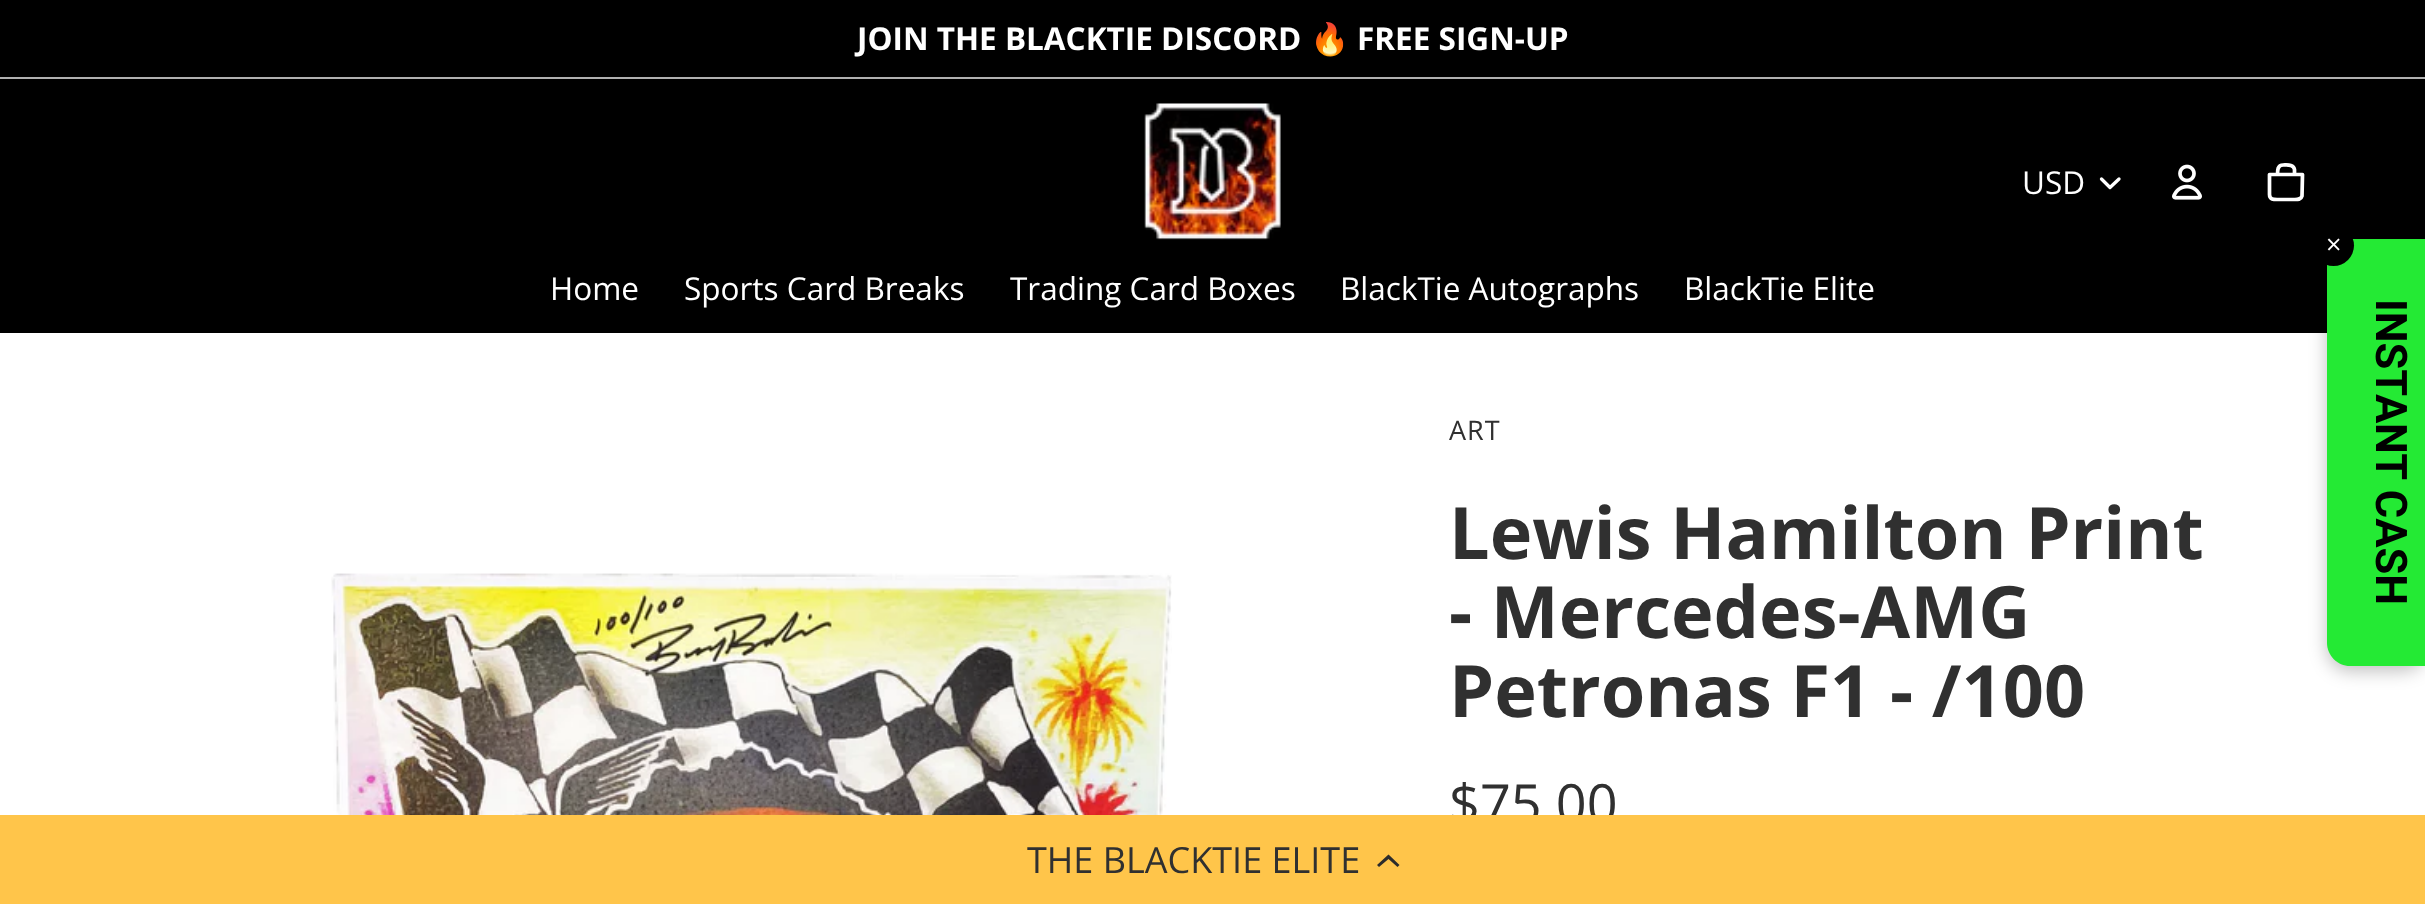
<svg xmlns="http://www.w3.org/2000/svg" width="2425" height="904">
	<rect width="100%" height="100%" fill="#FFFFFF" />
	<rect x="0" y="0" width="2425" height="77" fill="#000000" />
	<rect x="0" y="77" width="2425" height="2" fill="#B0B0B0" />
	<text x="857" y="50" font-family="Open Sans" font-size="31.5" font-weight="700" fill="#FFFFFF">JOIN THE BLACKTIE DISCORD</text>
	<text x="1310" y="50" font-family="Noto Color Emoji" font-size="31.5" font-weight="700" fill="#FFFFFF">🔥</text>
	<text x="1357" y="50" font-family="Open Sans" font-size="31.5" font-weight="700" fill="#FFFFFF">FREE SIGN-UP</text>
	<rect x="0" y="79" width="2425" height="182" fill="#000000" />
	<image x="1144" y="103" width="137" height="137" href="assets/img1.png" />
	<text x="2022" y="194" font-family="Open Sans" font-size="31.5" fill="#FFFFFF">USD</text>
	<path d="M2119 179L2110 187.5L2101.5 179" fill="none" stroke="#FFFFFF" stroke-width="3.3" stroke-linecap="round" stroke-linejoin="round" />
	<image x="2172" y="164" width="30" height="36" href="assets/img2.png" />
	<path d="M2269.5 174.5H2302.5L2302 196C2301 200 2297 199.5 2293.5 199.5H2278.5C2274.5 199.5 2269.5 200 2269.5 194.5ZM2283 165C2287.5 165 2293.5 164 2294.5 169.5V174.5H2277.5C2277.5 170.5 2277.5 165 2283 165" fill="none" stroke="#FFFFFF" stroke-width="3.7" stroke-linecap="round" stroke-linejoin="round" />
	<rect x="0" y="261" width="2327" height="72" fill="#000000" />
	<g font-family="Open Sans" font-size="31.5" fill="#FFFFFF">
		<text x="550" y="300">Home</text>
		<text x="684" y="300">Sports Card Breaks</text>
		<text x="1010" y="300">Trading Card Boxes</text>
		<text x="1340" y="300">BlackTie Autographs</text>
		<text x="1684" y="300">BlackTie Elite</text>
	</g>
	<image x="331" y="573" width="841" height="242" href="assets/img3.png" />
	<text x="1449" y="440" font-family="Open Sans" font-size="27" letter-spacing="1" fill="#303030">ART</text>
	<g font-family="Open Sans" font-size="72" font-weight="700" fill="#303030">
		<text x="1449" y="559">Lewis Hamilton Print</text>
		<text x="1449" y="638">- Mercedes-AMG</text>
		<text x="1449" y="717">Petronas F1 - /100</text>
	</g>
	<text x="1449" y="823" font-family="Open Sans" font-size="54" fill="#303030">$75.00</text>
	<rect x="2327" y="243" width="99" height="428" rx="23" fill="#000000" fill-opacity="0.25" filter="blur(9px)" />
	<path d="M2350 239H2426V666H2350C2337.5 666 2327 655.5 2327 643V262C2327 249.5 2337.5 239 2350 239Z" fill="#24EA34" />
	<circle cx="2333.5" cy="245.5" r="20.5" fill="#000000" />
	<text x="2326" y="254" font-family="Open Sans" font-size="27" fill="#FFFFFF">×</text>
	<text x="2376" y="299" transform="rotate(90 2376 299)" font-family="Roboto" font-size="43.5" font-weight="700" fill="#000000">INSTANT CASH</text>
	<rect x="0" y="815" width="2425" height="89" fill="#FFC54A" />
	<text x="1027" y="873" font-family="Open Sans" font-size="36" fill="#303030">THE BLACKTIE ELITE</text>
	<path d="M1388.5 859L1379 867L1377 865L1388.5 854.5L1399.5 865L1397.5 867Z" fill="#2C2C2C" />
</svg>
